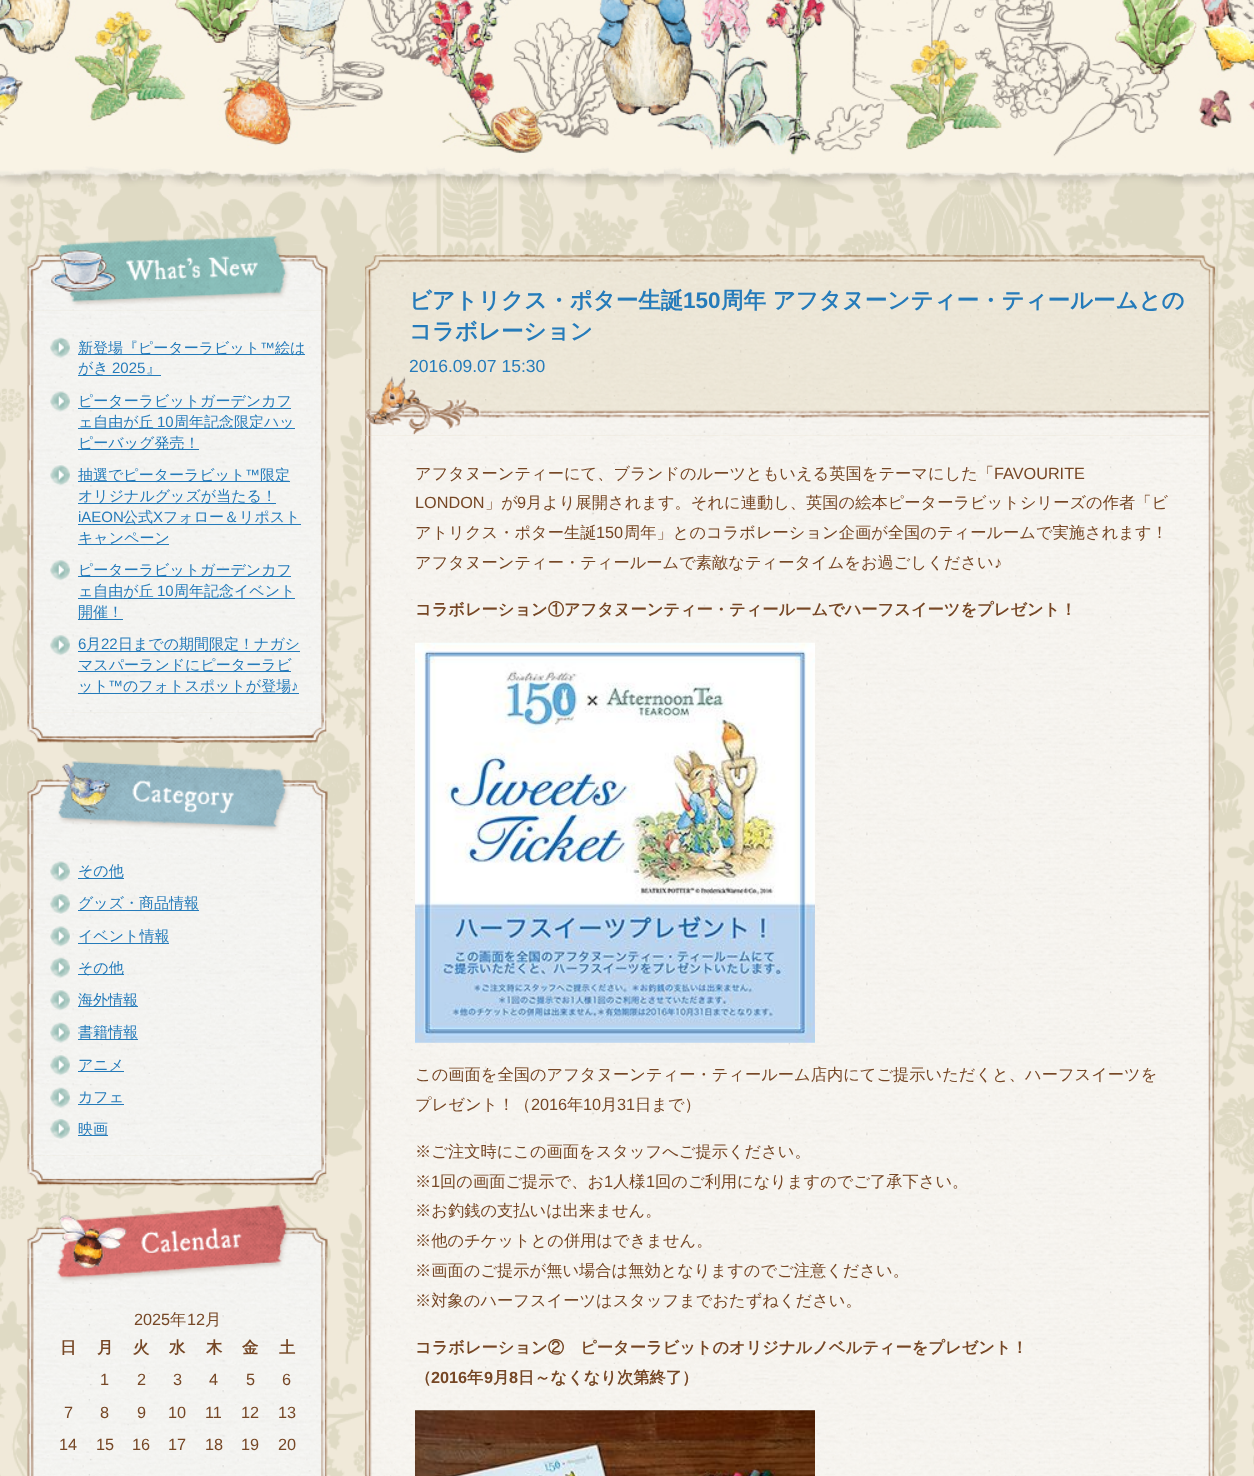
<svg xmlns="http://www.w3.org/2000/svg" width="1254" height="1476">
	<rect width="100%" height="100%" fill="#FFFFFF" />
	<image x="0" y="166" width="1254" height="1310" href="assets/img1.png" />
	<image x="0" y="0" width="1254" height="187" href="assets/img2.png" />
	<image x="27" y="310" width="301" height="403" href="assets/img4.png" />
	<image x="27" y="236" width="301" height="75" href="assets/img3.png" />
	<image x="50" y="337" width="20" height="21" href="assets/img5.png" />
	<rect x="78" y="354" width="227" height="1" fill="#257BBA" />
	<text x="78" y="353" font-family="WenQuanYi Zen Hei" font-size="15" font-weight="500" fill="#257BBA">新登場『ピーターラビット</text>
	<text x="260" y="353" font-family="Liberation Sans" font-size="15" fill="#257BBA">™︎</text>
	<text x="275" y="353" font-family="WenQuanYi Zen Hei" font-size="15" font-weight="500" fill="#257BBA">絵は</text>
	<rect x="78" y="375" width="83" height="1" fill="#257BBA" />
	<text x="78" y="373" font-family="WenQuanYi Zen Hei" font-size="15" font-weight="500" fill="#257BBA">がき</text>
	<text x="112" y="373" font-family="Liberation Sans" font-size="15" fill="#257BBA">2025</text>
	<text x="146" y="373" font-family="WenQuanYi Zen Hei" font-size="15" font-weight="500" fill="#257BBA">』</text>
	<image x="50" y="391" width="20" height="21" href="assets/img6.png" />
	<rect x="78" y="408" width="213" height="1" fill="#257BBA" />
	<text x="78" y="406" font-family="WenQuanYi Zen Hei" font-size="15" font-weight="500" fill="#257BBA">ピーターラビットガーデンカフ</text>
	<rect x="78" y="428" width="217" height="1" fill="#257BBA" />
	<text x="78" y="427" font-family="WenQuanYi Zen Hei" font-size="15" font-weight="500" fill="#257BBA">ェ自由が丘</text>
	<text x="157" y="427" font-family="Liberation Sans" font-size="15" fill="#257BBA">10</text>
	<text x="174" y="427" font-family="WenQuanYi Zen Hei" font-size="15" font-weight="500" fill="#257BBA">周年記念限定ハッ</text>
	<rect x="78" y="449" width="121" height="1" fill="#257BBA" />
	<text x="78" y="448" font-family="WenQuanYi Zen Hei" font-size="15" font-weight="500" fill="#257BBA">ピーバッグ発売！</text>
	<image x="50" y="465" width="20" height="21" href="assets/img7.png" />
	<rect x="78" y="481" width="212" height="1" fill="#257BBA" />
	<text x="78" y="480" font-family="WenQuanYi Zen Hei" font-size="15" font-weight="500" fill="#257BBA">抽選でピーターラビット</text>
	<text x="245" y="480" font-family="Liberation Sans" font-size="15" fill="#257BBA">™</text>
	<text x="260" y="480" font-family="WenQuanYi Zen Hei" font-size="15" font-weight="500" fill="#257BBA">限定</text>
	<rect x="78" y="503" width="198" height="1" fill="#257BBA" />
	<text x="78" y="501" font-family="WenQuanYi Zen Hei" font-size="15" font-weight="500" fill="#257BBA">オリジナルグッズが当たる！</text>
	<text x="78" y="522" font-family="Liberation Sans" font-size="15" fill="#257BBA">iAEON</text>
	<rect x="78" y="524" width="223" height="1" fill="#257BBA" />
	<text x="123" y="522" font-family="WenQuanYi Zen Hei" font-size="15" font-weight="500" fill="#257BBA">公式</text>
	<text x="153" y="522" font-family="Liberation Sans" font-size="15" fill="#257BBA">X</text>
	<text x="163" y="522" font-family="WenQuanYi Zen Hei" font-size="15" font-weight="500" fill="#257BBA">フォロー＆リポスト</text>
	<rect x="78" y="544" width="91" height="1" fill="#257BBA" />
	<text x="78" y="543" font-family="WenQuanYi Zen Hei" font-size="15" font-weight="500" fill="#257BBA">キャンペーン</text>
	<image x="50" y="560" width="20" height="21" href="assets/img8.png" />
	<rect x="78" y="576" width="213" height="1" fill="#257BBA" />
	<text x="78" y="575" font-family="WenQuanYi Zen Hei" font-size="15" font-weight="500" fill="#257BBA">ピーターラビットガーデンカフ</text>
	<rect x="78" y="598" width="217" height="1" fill="#257BBA" />
	<text x="78" y="596" font-family="WenQuanYi Zen Hei" font-size="15" font-weight="500" fill="#257BBA">ェ自由が丘</text>
	<text x="157" y="596" font-family="Liberation Sans" font-size="15" fill="#257BBA">10</text>
	<text x="174" y="596" font-family="WenQuanYi Zen Hei" font-size="15" font-weight="500" fill="#257BBA">周年記念イベント</text>
	<rect x="78" y="619" width="45" height="1" fill="#257BBA" />
	<text x="78" y="617" font-family="WenQuanYi Zen Hei" font-size="15" font-weight="500" fill="#257BBA">開催！</text>
	<image x="50" y="635" width="20" height="21" href="assets/img8.png" />
	<text x="78" y="649" font-family="Liberation Sans" font-size="15" fill="#257BBA">6</text>
	<rect x="78" y="651" width="222" height="1" fill="#257BBA" />
	<text x="86" y="649" font-family="WenQuanYi Zen Hei" font-size="15" font-weight="500" fill="#257BBA">月</text>
	<text x="101" y="649" font-family="Liberation Sans" font-size="15" fill="#257BBA">22</text>
	<text x="118" y="649" font-family="WenQuanYi Zen Hei" font-size="15" font-weight="500" fill="#257BBA">日までの期間限定！ナガシ</text>
	<rect x="78" y="671" width="213" height="1" fill="#257BBA" />
	<g font-family="WenQuanYi Zen Hei" font-size="15" font-weight="500" fill="#257BBA">
		<text x="78" y="670">マスパーランドにピーターラビ</text>
		<text x="78" y="691">ット</text>
	</g>
	<rect x="78" y="693" width="221" height="1" fill="#257BBA" />
	<text x="108" y="691" font-family="Liberation Sans" font-size="15" fill="#257BBA">™</text>
	<text x="123" y="691" font-family="WenQuanYi Zen Hei" font-size="15" font-weight="500" fill="#257BBA">のフォトスポットが登場</text>
	<text x="291" y="691" font-family="Liberation Sans" font-size="15" fill="#257BBA">♪</text>
	<image x="27" y="712" width="300" height="31" href="assets/img9.png" />
	<image x="27" y="761" width="301" height="73" href="assets/img10.png" />
	<image x="27" y="834" width="301" height="322" href="assets/img11.png" />
	<image x="50" y="861" width="20" height="21" href="assets/img12.png" />
	<rect x="78" y="878" width="46" height="1" fill="#257BBA" />
	<text x="78" y="876" font-family="WenQuanYi Zen Hei" font-size="15" font-weight="500" fill="#257BBA">その他</text>
	<image x="50" y="894" width="20" height="20" href="assets/img13.png" />
	<text x="78" y="908" font-family="WenQuanYi Zen Hei" font-size="15" font-weight="500" fill="#257BBA">グッズ・商品情報</text>
	<rect x="78" y="910" width="121" height="1" fill="#257BBA" />
	<image x="50" y="926" width="20" height="21" href="assets/img14.png" />
	<text x="78" y="941" font-family="WenQuanYi Zen Hei" font-size="15" font-weight="500" fill="#257BBA">イベント情報</text>
	<rect x="78" y="943" width="91" height="1" fill="#257BBA" />
	<image x="50" y="957" width="20" height="21" href="assets/img15.png" />
	<rect x="78" y="974" width="46" height="1" fill="#257BBA" />
	<text x="78" y="973" font-family="WenQuanYi Zen Hei" font-size="15" font-weight="500" fill="#257BBA">その他</text>
	<image x="50" y="990" width="20" height="21" href="assets/img16.png" />
	<rect x="78" y="1006" width="60" height="1" fill="#257BBA" />
	<text x="78" y="1005" font-family="WenQuanYi Zen Hei" font-size="15" font-weight="500" fill="#257BBA">海外情報</text>
	<image x="50" y="1022" width="20" height="21" href="assets/img17.png" />
	<text x="78" y="1037" font-family="WenQuanYi Zen Hei" font-size="15" font-weight="500" fill="#257BBA">書籍情報</text>
	<rect x="78" y="1039" width="60" height="1" fill="#257BBA" />
	<image x="50" y="1055" width="20" height="21" href="assets/img18.png" />
	<rect x="78" y="1071" width="46" height="1" fill="#257BBA" />
	<text x="78" y="1070" font-family="WenQuanYi Zen Hei" font-size="15" font-weight="500" fill="#257BBA">アニメ</text>
	<image x="50" y="1087" width="20" height="21" href="assets/img19.png" />
	<text x="78" y="1102" font-family="WenQuanYi Zen Hei" font-size="15" font-weight="500" fill="#257BBA">カフェ</text>
	<rect x="78" y="1104" width="46" height="1" fill="#257BBA" />
	<image x="50" y="1119" width="20" height="20" href="assets/img20.png" />
	<rect x="78" y="1135" width="30" height="1" fill="#257BBA" />
	<text x="78" y="1134" font-family="WenQuanYi Zen Hei" font-size="15" font-weight="500" fill="#257BBA">映画</text>
	<image x="27" y="1155" width="300" height="31" href="assets/img21.png" />
	<image x="27" y="1205" width="301" height="79" href="assets/img22.png" />
	<image x="27" y="1284" width="301" height="192" href="assets/img23.png" />
	<text x="134" y="1325" font-family="Liberation Sans" font-size="16.25" fill="#764725">2025</text>
	<text x="170" y="1325" font-family="WenQuanYi Zen Hei" font-size="16.25" font-weight="500" fill="#764725">年</text>
	<text x="187" y="1325" font-family="Liberation Sans" font-size="16.25" fill="#764725">12</text>
	<text x="205" y="1325" font-family="WenQuanYi Zen Hei" font-size="16.25" font-weight="500" fill="#764725">月</text>
	<g font-family="WenQuanYi Zen Hei" font-size="16.25" font-weight="700" fill="#764725">
		<text x="60" y="1353">日</text>
		<text x="97" y="1353">月</text>
		<text x="133" y="1353">火</text>
		<text x="169" y="1353">水</text>
		<text x="206" y="1353">木</text>
		<text x="242" y="1353">金</text>
		<text x="279" y="1353">土</text>
	</g>
	<g font-family="Liberation Sans" font-size="16.25" fill="#764725">
		<text x="100" y="1385">1</text>
		<text x="137" y="1385">2</text>
		<text x="173" y="1385">3</text>
		<text x="209" y="1385">4</text>
		<text x="246" y="1385">5</text>
		<text x="282" y="1385">6</text>
		<text x="64" y="1418">7</text>
		<text x="100" y="1418">8</text>
		<text x="137" y="1418">9</text>
		<text x="168" y="1418">10</text>
		<text x="205" y="1418">11</text>
		<text x="241" y="1418">12</text>
		<text x="278" y="1418">13</text>
		<text x="59" y="1450">14</text>
		<text x="96" y="1450">15</text>
		<text x="132" y="1450">16</text>
		<text x="168" y="1450">17</text>
		<text x="205" y="1450">18</text>
		<text x="241" y="1450">19</text>
		<text x="278" y="1450">20</text>
	</g>
	<image x="365" y="435" width="851" height="1041" href="assets/img26.png" />
	<image x="365" y="254" width="851" height="182" href="assets/img24.png" />
	<text x="409" y="308" font-family="WenQuanYi Zen Hei" font-size="22.5" font-weight="700" fill="#257BBA">ビアトリクス・ポター生誕</text>
	<text x="683" y="308" font-family="Liberation Sans" font-size="22.5" font-weight="700" fill="#257BBA">150</text>
	<g font-family="WenQuanYi Zen Hei" font-size="22.5" font-weight="700" fill="#257BBA">
		<text x="721" y="308">周年 アフタヌーンティー・ティールームとの</text>
		<text x="409" y="339">コラボレーション</text>
	</g>
	<text x="409" y="372" font-family="Liberation Sans" font-size="17.5" fill="#257BBA">2016.09.07 15:30</text>
	<image x="365" y="376" width="851" height="60" href="assets/img25.png" />
	<text x="415" y="479" font-family="WenQuanYi Zen Hei" font-size="16.25" font-weight="500" fill="#764725">アフタヌーンティーにて、ブランドのルーツともいえる英国をテーマにした「</text>
	<g font-family="Liberation Sans" font-size="16.25" fill="#764725">
		<text x="994" y="479">FAVOURITE</text>
		<text x="415" y="508">LONDON</text>
	</g>
	<text x="485" y="508" font-family="WenQuanYi Zen Hei" font-size="16.25" font-weight="500" fill="#764725">」が</text>
	<text x="517" y="508" font-family="Liberation Sans" font-size="16.25" fill="#764725">9</text>
	<g font-family="WenQuanYi Zen Hei" font-size="16.25" font-weight="500" fill="#764725">
		<text x="526" y="508">月より展開されます。それに連動し、英国の絵本ピーターラビットシリーズの作者「ビ</text>
		<text x="415" y="538">アトリクス・ポター生誕</text>
	</g>
	<text x="596" y="538" font-family="Liberation Sans" font-size="16.25" fill="#764725">150</text>
	<g font-family="WenQuanYi Zen Hei" font-size="16.25" font-weight="500" fill="#764725">
		<text x="624" y="538">周年」とのコラボレーション企画が全国のティールームで実施されます！</text>
		<text x="415" y="568">アフタヌーンティー・ティールームで素敵なティータイムをお過ごしください</text>
	</g>
	<text x="994" y="568" font-family="Liberation Sans" font-size="16.25" fill="#764725">♪</text>
	<text x="415" y="615" font-family="WenQuanYi Zen Hei" font-size="16.25" font-weight="700" fill="#764725">コラボレーション①アフタヌーンティー・ティールームでハーフスイーツをプレゼント！</text>
	<image x="415" y="642" width="400" height="401" href="assets/img27.png" />
	<g font-family="WenQuanYi Zen Hei" font-size="16.25" font-weight="500" fill="#764725">
		<text x="415" y="1080">この画面を全国のアフタヌーンティー・ティールーム店内にてご提示いただくと、ハーフスイーツを</text>
		<text x="415" y="1110">プレゼント！（</text>
	</g>
	<text x="531" y="1110" font-family="Liberation Sans" font-size="16.25" fill="#764725">2016</text>
	<text x="567" y="1110" font-family="WenQuanYi Zen Hei" font-size="16.25" font-weight="500" fill="#764725">年</text>
	<text x="583" y="1110" font-family="Liberation Sans" font-size="16.25" fill="#764725">10</text>
	<text x="601" y="1110" font-family="WenQuanYi Zen Hei" font-size="16.25" font-weight="500" fill="#764725">月</text>
	<text x="617" y="1110" font-family="Liberation Sans" font-size="16.25" fill="#764725">31</text>
	<g font-family="WenQuanYi Zen Hei" font-size="16.25" font-weight="500" fill="#764725">
		<text x="635" y="1110">日まで）</text>
		<text x="415" y="1157">※ご注文時にこの画面をスタッフへご提示ください。</text>
		<text x="415" y="1187">※</text>
	</g>
	<text x="431" y="1187" font-family="Liberation Sans" font-size="16.25" fill="#764725">1</text>
	<text x="440" y="1187" font-family="WenQuanYi Zen Hei" font-size="16.25" font-weight="500" fill="#764725">回の画面ご提示で、お</text>
	<text x="604" y="1187" font-family="Liberation Sans" font-size="16.25" fill="#764725">1</text>
	<text x="613" y="1187" font-family="WenQuanYi Zen Hei" font-size="16.25" font-weight="500" fill="#764725">人様</text>
	<text x="646" y="1187" font-family="Liberation Sans" font-size="16.25" fill="#764725">1</text>
	<g font-family="WenQuanYi Zen Hei" font-size="16.25" font-weight="500" fill="#764725">
		<text x="655" y="1187">回のご利用になりますのでご了承下さい。</text>
		<text x="415" y="1216">※お釣銭の支払いは出来ません。</text>
		<text x="415" y="1246">※他のチケットとの併用はできません。</text>
		<text x="415" y="1276">※画面のご提示が無い場合は無効となりますのでご注意ください。</text>
		<text x="415" y="1306">※対象のハーフスイーツはスタッフまでおたずねください。</text>
	</g>
	<g font-family="WenQuanYi Zen Hei" font-size="16.25" font-weight="700" fill="#764725">
		<text x="415" y="1353">コラボレーション②　ピーターラビットのオリジナルノベルティーをプレゼント！</text>
		<text x="415" y="1383">（</text>
	</g>
	<text x="431" y="1383" font-family="Liberation Sans" font-size="16.25" font-weight="700" fill="#764725">2016</text>
	<text x="467" y="1383" font-family="WenQuanYi Zen Hei" font-size="16.25" font-weight="700" fill="#764725">年</text>
	<text x="484" y="1383" font-family="Liberation Sans" font-size="16.25" font-weight="700" fill="#764725">9</text>
	<text x="493" y="1383" font-family="WenQuanYi Zen Hei" font-size="16.25" font-weight="700" fill="#764725">月</text>
	<text x="509" y="1383" font-family="Liberation Sans" font-size="16.25" font-weight="700" fill="#764725">8</text>
	<text x="518" y="1383" font-family="WenQuanYi Zen Hei" font-size="16.25" font-weight="700" fill="#764725">日～なくなり次第終了）</text>
	<image x="415" y="1410" width="400" height="66" href="assets/img28.png" />
</svg>
